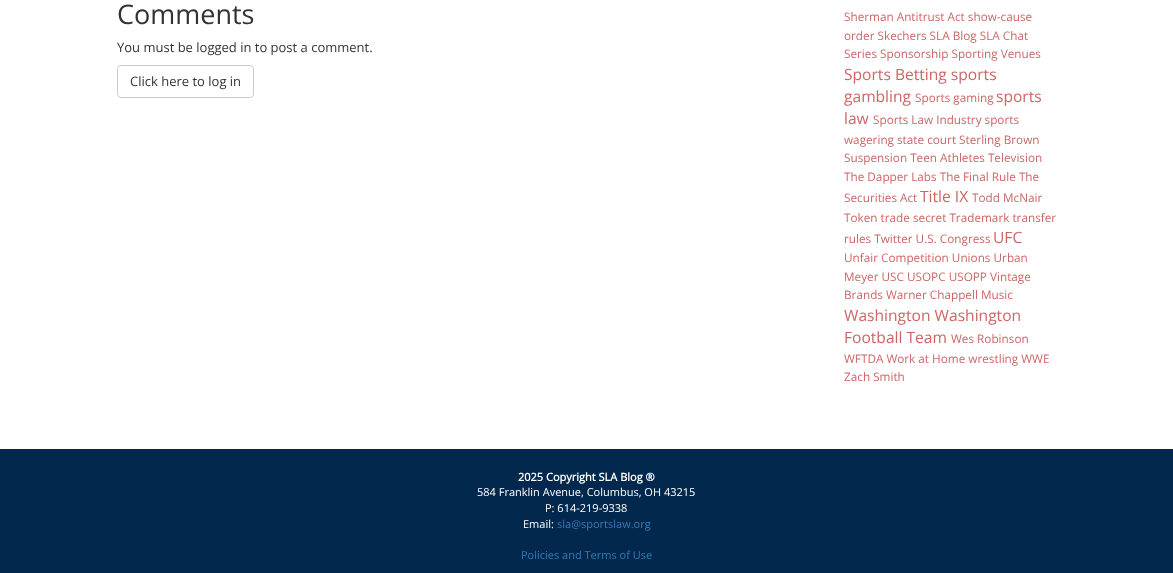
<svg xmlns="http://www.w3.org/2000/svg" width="1173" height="573">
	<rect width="100%" height="100%" fill="#FFFFFF" />
	<text x="117" y="24" font-family="Open Sans" font-size="27" fill="#333333">Comments</text>
	<text x="117" y="52" font-family="Open Sans" font-size="13" fill="#333333">You must be logged in to post a comment.</text>
	<rect x="117.5" y="65.5" width="136" height="32" rx="3.5" fill="none" stroke="#CCCCCC" />
	<text x="130" y="86" font-family="Open Sans" font-size="13" fill="#333333">Click here to log in</text>
	<g font-family="Open Sans" font-size="11.75" fill="#CC6666">
		<text x="844" y="21">Sherman Antitrust Act show-cause</text>
		<text x="844" y="40">order Skechers SLA Blog SLA Chat</text>
		<text x="844" y="58">Series Sponsorship Sporting Venues</text>
	</g>
	<g font-family="Open Sans" font-size="15.6" fill="#CC6666">
		<text x="844" y="80">Sports Betting sports</text>
		<text x="844" y="102">gambling</text>
	</g>
	<text x="915" y="102" font-family="Open Sans" font-size="11.75" fill="#CC6666">Sports gaming</text>
	<g font-family="Open Sans" font-size="15.6" fill="#CC6666">
		<text x="996" y="102">sports</text>
		<text x="844" y="124">law</text>
	</g>
	<g font-family="Open Sans" font-size="11.75" fill="#CC6666">
		<text x="873" y="124">Sports Law Industry sports</text>
		<text x="844" y="144">wagering state court Sterling Brown</text>
		<text x="844" y="162">Suspension Teen Athletes Television</text>
		<text x="844" y="181">The Dapper Labs The Final Rule The</text>
		<text x="844" y="202">Securities Act</text>
	</g>
	<text x="920" y="202" font-family="Open Sans" font-size="15.6" fill="#CC6666">Title IX</text>
	<g font-family="Open Sans" font-size="11.75" fill="#CC6666">
		<text x="972" y="202">Todd McNair</text>
		<text x="844" y="222">Token trade secret Trademark transfer</text>
		<text x="844" y="243">rules Twitter U.S. Congress</text>
	</g>
	<text x="993" y="243" font-family="Open Sans" font-size="15.6" fill="#CC6666">UFC</text>
	<g font-family="Open Sans" font-size="11.75" fill="#CC6666">
		<text x="844" y="262">Unfair Competition Unions Urban</text>
		<text x="844" y="281">Meyer USC USOPC USOPP Vintage</text>
		<text x="844" y="299">Brands Warner Chappell Music</text>
	</g>
	<g font-family="Open Sans" font-size="15.6" fill="#CC6666">
		<text x="844" y="321">Washington Washington</text>
		<text x="844" y="343">Football Team</text>
	</g>
	<g font-family="Open Sans" font-size="11.75" fill="#CC6666">
		<text x="951" y="343">Wes Robinson</text>
		<text x="844" y="363">WFTDA Work at Home wrestling WWE</text>
		<text x="844" y="381">Zach Smith</text>
	</g>
	<rect x="0" y="449" width="1173" height="124" fill="#02294D" />
	<text x="518" y="481" font-family="Open Sans" font-size="11" font-weight="700" fill="#FFFFFF">2025 Copyright SLA Blog ®</text>
	<g font-family="Open Sans" font-size="11" fill="#FFFFFF">
		<text x="477" y="496">584 Franklin Avenue, Columbus, OH 43215</text>
		<text x="545" y="512">P: 614-219-9338</text>
		<text x="523" y="528">Email:</text>
	</g>
	<g font-family="Open Sans" font-size="11" fill="#337AB7">
		<text x="557" y="528">sla@sportslaw.org</text>
		<text x="521" y="559">Policies and Terms of Use</text>
	</g>
</svg>
